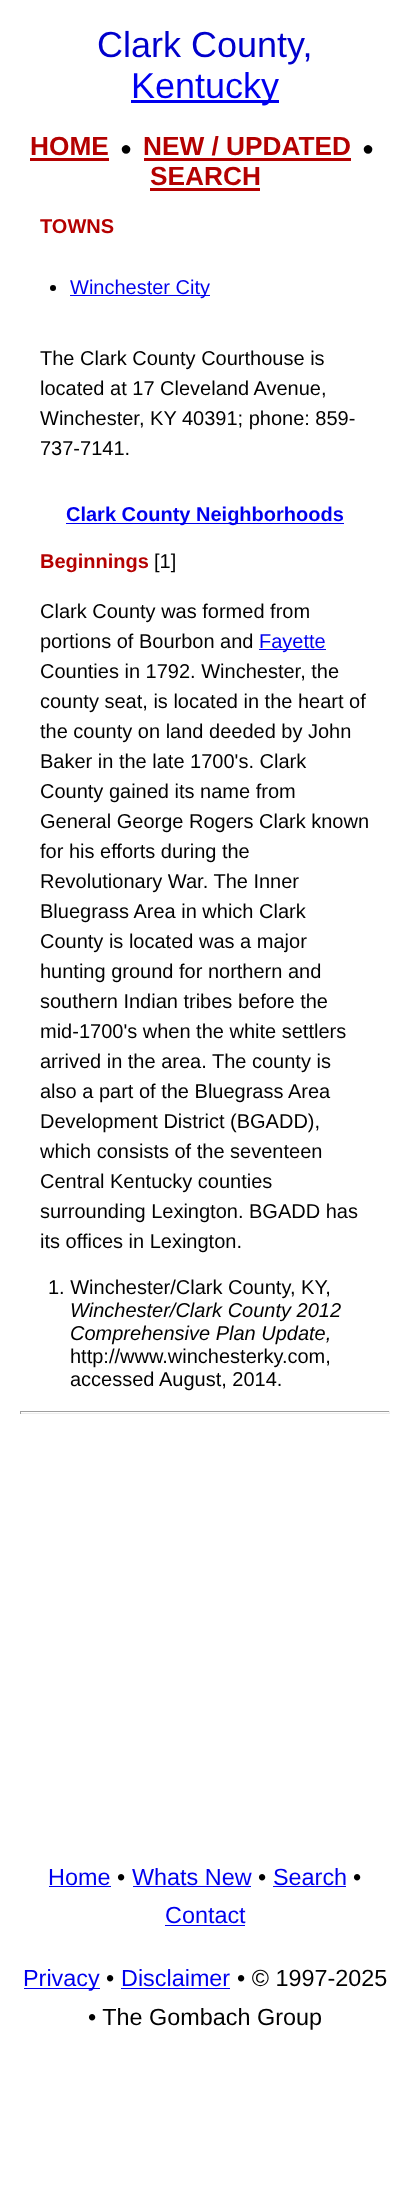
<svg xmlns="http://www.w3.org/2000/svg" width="409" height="2204">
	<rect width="100%" height="100%" fill="#FFFFFF" />
	<text x="97" y="57" font-family="Liberation Sans" font-size="36" fill="#0000CC">Clark County,</text>
	<rect x="131" y="100" width="148" height="3" fill="#0000EE" />
	<text x="131" y="98" font-family="Liberation Sans" font-size="36" fill="#0000EE">Kentucky</text>
	<text x="30" y="155" font-family="Liberation Sans" font-size="26.25" font-weight="700" fill="#B40101">HOME</text>
	<rect x="30" y="158" width="79" height="3" fill="#B40101" />
	<text x="120" y="155" font-family="Liberation Sans" font-size="20" fill="#000000">●</text>
	<text x="143" y="155" font-family="Liberation Sans" font-size="26.25" font-weight="700" fill="#B40101">NEW / UPDATED</text>
	<rect x="144" y="158" width="207" height="3" fill="#B40101" />
	<text x="362" y="155" font-family="Liberation Sans" font-size="20" fill="#000000">●</text>
	<text x="150" y="185" font-family="Liberation Sans" font-size="26.25" font-weight="700" fill="#B40101">SEARCH</text>
	<rect x="150" y="188" width="110" height="3" fill="#B40101" />
	<text x="40" y="233" font-family="Liberation Sans" font-size="20" font-weight="700" fill="#B40101">TOWNS</text>
	<circle cx="53" cy="288" r="3" fill="#000000" />
	<rect x="70" y="295" width="140" height="1" fill="#0000EE" />
	<text x="70" y="294" font-family="Liberation Sans" font-size="20" fill="#0000EE">Winchester City</text>
	<g font-family="Liberation Sans" font-size="20" fill="#000000">
		<text x="40" y="365">The Clark County Courthouse is</text>
		<text x="40" y="395">located at 17 Cleveland Avenue,</text>
		<text x="40" y="425">Winchester, KY 40391; phone: 859-</text>
		<text x="40" y="455">737-7141.</text>
	</g>
	<rect x="66" y="523" width="278" height="1" fill="#0000EE" />
	<text x="66" y="521" font-family="Liberation Sans" font-size="20" font-weight="700" fill="#0000EE">Clark County Neighborhoods</text>
	<text x="40" y="568" font-family="Liberation Sans" font-size="20" font-weight="700" fill="#B40101">Beginnings</text>
	<g font-family="Liberation Sans" font-size="20" fill="#000000">
		<text x="154" y="568">[1]</text>
		<text x="40" y="618">Clark County was formed from</text>
		<text x="40" y="648">portions of Bourbon and</text>
	</g>
	<rect x="259" y="649" width="67" height="1" fill="#0000EE" />
	<text x="259" y="648" font-family="Liberation Sans" font-size="20" fill="#0000EE">Fayette</text>
	<g font-family="Liberation Sans" font-size="20" fill="#000000">
		<text x="40" y="678">Counties in 1792. Winchester, the</text>
		<text x="40" y="708">county seat, is located in the heart of</text>
		<text x="40" y="738">the county on land deeded by John</text>
		<text x="40" y="768">Baker in the late 1700's. Clark</text>
		<text x="40" y="798">County gained its name from</text>
		<text x="40" y="828">General George Rogers Clark known</text>
		<text x="40" y="858">for his efforts during the</text>
		<text x="40" y="888">Revolutionary War. The Inner</text>
		<text x="40" y="918">Bluegrass Area in which Clark</text>
		<text x="40" y="948">County is located was a major</text>
		<text x="40" y="978">hunting ground for northern and</text>
		<text x="40" y="1008">southern Indian tribes before the</text>
		<text x="40" y="1038">mid-1700's when the white settlers</text>
		<text x="40" y="1068">arrived in the area. The county is</text>
		<text x="40" y="1098">also a part of the Bluegrass Area</text>
		<text x="40" y="1128">Development District (BGADD),</text>
		<text x="40" y="1158">which consists of the seventeen</text>
		<text x="40" y="1188">Central Kentucky counties</text>
		<text x="40" y="1218">surrounding Lexington. BGADD has</text>
		<text x="40" y="1248">its offices in Lexington.</text>
		<text x="48" y="1294">1. Winchester/Clark County, KY,</text>
	</g>
	<g font-family="Liberation Sans" font-size="20" font-style="italic" fill="#000000">
		<text x="70" y="1317">Winchester/Clark County 2012</text>
		<text x="70" y="1340">Comprehensive Plan Update,</text>
	</g>
	<g font-family="Liberation Sans" font-size="20" fill="#000000">
		<text x="70" y="1363">http://www.winchesterky.com,</text>
		<text x="70" y="1386">accessed August, 2014.</text>
	</g>
	<rect x="20" y="1411" width="370" height="1" fill="#9F9F9F" />
	<rect x="389" y="1411" width="1" height="3" fill="#EEEEEE" />
	<rect x="20" y="1413" width="370" height="1" fill="#EEEEEE" />
	<rect x="20" y="1411" width="1" height="3" fill="#9F9F9F" />
	<text x="48" y="1885" font-family="Liberation Sans" font-size="23.4" fill="#0000EE">Home</text>
	<rect x="49" y="1886" width="62" height="1" fill="#0000EE" />
	<text x="117" y="1885" font-family="Liberation Sans" font-size="23.4" fill="#000000">•</text>
	<text x="132" y="1885" font-family="Liberation Sans" font-size="23.4" fill="#0000EE">Whats New</text>
	<rect x="133" y="1886" width="118" height="1" fill="#0000EE" />
	<text x="258" y="1885" font-family="Liberation Sans" font-size="23.4" fill="#000000">•</text>
	<text x="273" y="1885" font-family="Liberation Sans" font-size="23.4" fill="#0000EE">Search</text>
	<rect x="273" y="1886" width="73" height="1" fill="#0000EE" />
	<text x="353" y="1885" font-family="Liberation Sans" font-size="23.4" fill="#000000">•</text>
	<text x="165" y="1923" font-family="Liberation Sans" font-size="23.4" fill="#0000EE">Contact</text>
	<rect x="165" y="1925" width="80" height="1" fill="#0000EE" />
	<rect x="24" y="1988" width="76" height="1" fill="#0000EE" />
	<text x="23" y="1986" font-family="Liberation Sans" font-size="23.4" fill="#0000EE">Privacy</text>
	<text x="106" y="1986" font-family="Liberation Sans" font-size="23.4" fill="#000000">•</text>
	<text x="121" y="1986" font-family="Liberation Sans" font-size="23.4" fill="#0000EE">Disclaimer</text>
	<rect x="121" y="1988" width="109" height="1" fill="#0000EE" />
	<g font-family="Liberation Sans" font-size="23.4" fill="#000000">
		<text x="237" y="1986">• © 1997-2025</text>
		<text x="88" y="2025">• The Gombach Group</text>
	</g>
</svg>
